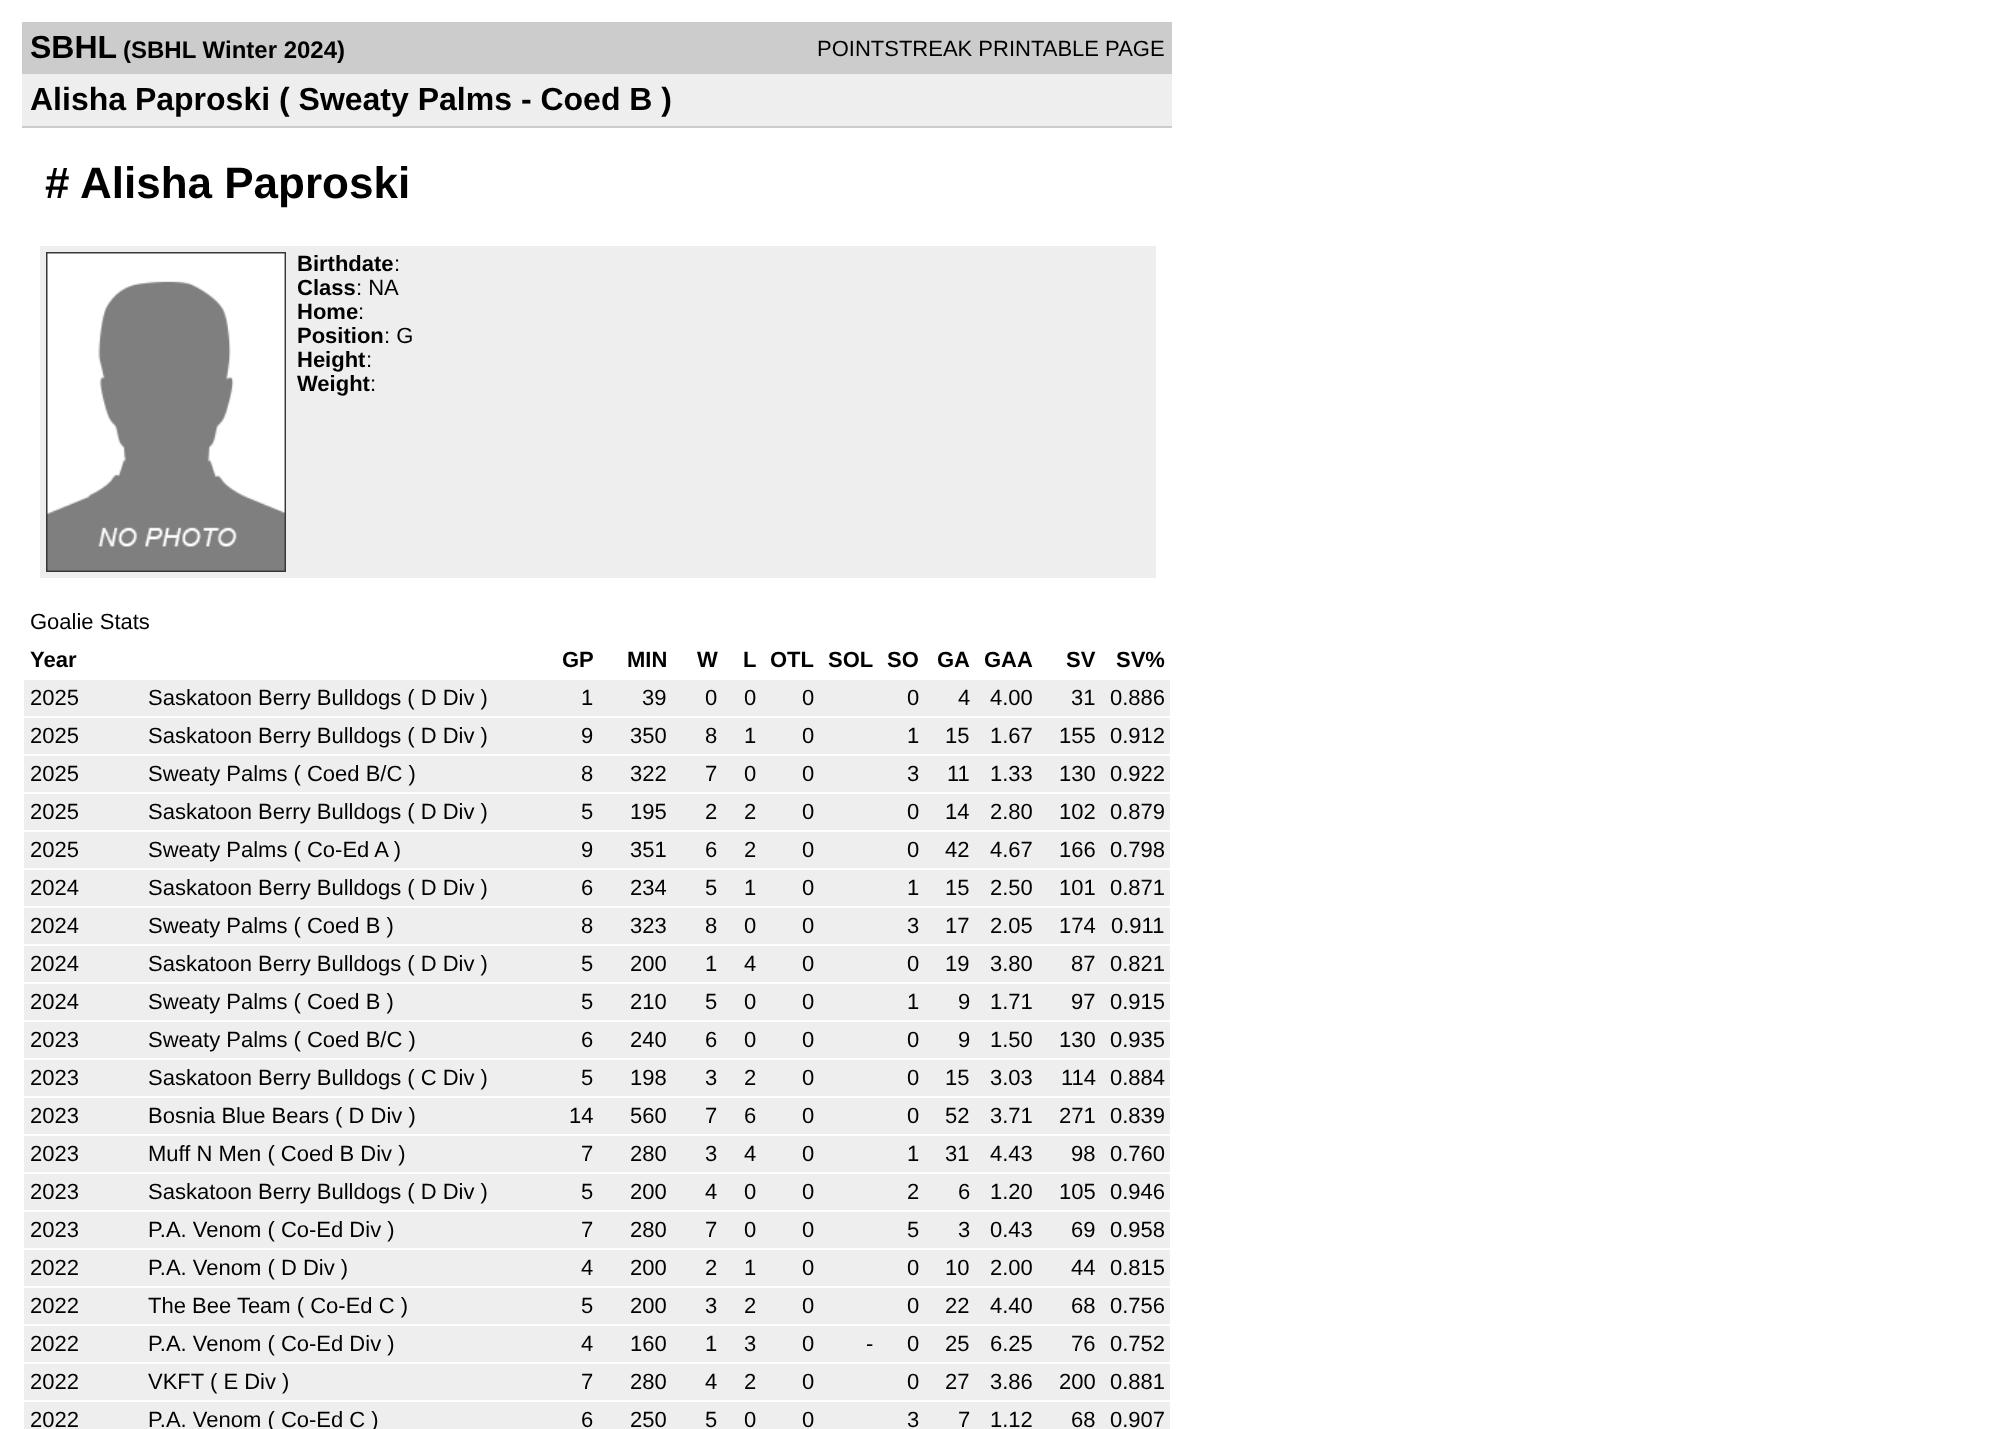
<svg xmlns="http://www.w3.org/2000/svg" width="2016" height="1429">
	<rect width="100%" height="100%" fill="#FFFFFF" />
	<rect x="22" y="22" width="1150" height="52" fill="#CCCCCC" />
	<text x="30" y="58" font-family="Liberation Sans" font-size="32" font-weight="700" fill="#000000">SBHL</text>
	<text x="123" y="58" font-family="Liberation Sans" font-size="24" font-weight="700" fill="#000000">(SBHL Winter 2024)</text>
	<text x="817" y="56" font-family="Liberation Sans" font-size="22" fill="#000000">POINTSTREAK PRINTABLE PAGE</text>
	<rect x="22" y="74" width="1150" height="52" fill="#EEEEEE" />
	<text x="30" y="110" font-family="Liberation Sans" font-size="32" font-weight="700" fill="#000000">Alisha Paproski ( Sweaty Palms - Coed B )</text>
	<rect x="22" y="126" width="1150" height="2" fill="#CCCCCC" />
	<g font-family="Liberation Sans" font-size="44" font-weight="700" fill="#000000">
		<text x="45" y="198">#</text>
		<text x="80" y="198">Alisha Paproski</text>
	</g>
	<rect x="40" y="246" width="1116" height="332" fill="#EEEEEE" />
	<image x="46" y="252" width="240" height="320" href="assets/img1.png" />
	<text x="297" y="271" font-family="Liberation Sans" font-size="22" font-weight="700" fill="#000000">Birthdate</text>
	<text x="394" y="271" font-family="Liberation Sans" font-size="22" fill="#000000">:</text>
	<text x="297" y="295" font-family="Liberation Sans" font-size="22" font-weight="700" fill="#000000">Class</text>
	<text x="356" y="295" font-family="Liberation Sans" font-size="22" fill="#000000">: NA</text>
	<text x="297" y="319" font-family="Liberation Sans" font-size="22" font-weight="700" fill="#000000">Home</text>
	<text x="358" y="319" font-family="Liberation Sans" font-size="22" fill="#000000">:</text>
	<text x="297" y="343" font-family="Liberation Sans" font-size="22" font-weight="700" fill="#000000">Position</text>
	<text x="384" y="343" font-family="Liberation Sans" font-size="22" fill="#000000">: G</text>
	<text x="297" y="367" font-family="Liberation Sans" font-size="22" font-weight="700" fill="#000000">Height</text>
	<text x="366" y="367" font-family="Liberation Sans" font-size="22" fill="#000000">:</text>
	<text x="297" y="391" font-family="Liberation Sans" font-size="22" font-weight="700" fill="#000000">Weight</text>
	<g font-family="Liberation Sans" font-size="22" fill="#000000">
		<text x="370" y="391">:</text>
		<text x="30" y="629">Goalie Stats</text>
	</g>
	<g font-family="Liberation Sans" font-size="22" font-weight="700" fill="#000000">
		<text x="30" y="667">Year</text>
		<text x="562" y="667">GP</text>
		<text x="627" y="667">MIN</text>
		<text x="697" y="667">W</text>
		<text x="743" y="667">L</text>
		<text x="770" y="667">OTL</text>
		<text x="828" y="667">SOL</text>
		<text x="887" y="667">SO</text>
		<text x="937" y="667">GA</text>
		<text x="984" y="667">GAA</text>
		<text x="1066" y="667">SV</text>
		<text x="1116" y="667">SV%</text>
	</g>
	<rect x="24" y="680" width="1146" height="36" fill="#EEEEEE" />
	<g font-family="Liberation Sans" font-size="22" fill="#000000">
		<text x="30" y="705">2025</text>
		<text x="148" y="705">Saskatoon Berry Bulldogs ( D Div )</text>
		<text x="581" y="705">1</text>
		<text x="642" y="705">39</text>
		<text x="705" y="705">0</text>
		<text x="744" y="705">0</text>
		<text x="802" y="705">0</text>
		<text x="907" y="705">0</text>
		<text x="958" y="705">4</text>
		<text x="990" y="705">4.00</text>
		<text x="1071" y="705">31</text>
		<text x="1110" y="705">0.886</text>
	</g>
	<rect x="24" y="718" width="1146" height="36" fill="#EEEEEE" />
	<g font-family="Liberation Sans" font-size="22" fill="#000000">
		<text x="30" y="743">2025</text>
		<text x="148" y="743">Saskatoon Berry Bulldogs ( D Div )</text>
		<text x="581" y="743">9</text>
		<text x="630" y="743">350</text>
		<text x="705" y="743">8</text>
		<text x="744" y="743">1</text>
		<text x="802" y="743">0</text>
		<text x="907" y="743">1</text>
		<text x="945" y="743">15</text>
		<text x="990" y="743">1.67</text>
		<text x="1059" y="743">155</text>
		<text x="1110" y="743">0.912</text>
	</g>
	<rect x="24" y="756" width="1146" height="36" fill="#EEEEEE" />
	<g font-family="Liberation Sans" font-size="22" fill="#000000">
		<text x="30" y="781">2025</text>
		<text x="148" y="781">Sweaty Palms ( Coed B/C )</text>
		<text x="581" y="781">8</text>
		<text x="630" y="781">322</text>
		<text x="705" y="781">7</text>
		<text x="744" y="781">0</text>
		<text x="802" y="781">0</text>
		<text x="907" y="781">3</text>
		<text x="947" y="781">11</text>
		<text x="990" y="781">1.33</text>
		<text x="1059" y="781">130</text>
		<text x="1110" y="781">0.922</text>
	</g>
	<rect x="24" y="794" width="1146" height="36" fill="#EEEEEE" />
	<g font-family="Liberation Sans" font-size="22" fill="#000000">
		<text x="30" y="819">2025</text>
		<text x="148" y="819">Saskatoon Berry Bulldogs ( D Div )</text>
		<text x="581" y="819">5</text>
		<text x="630" y="819">195</text>
		<text x="705" y="819">2</text>
		<text x="744" y="819">2</text>
		<text x="802" y="819">0</text>
		<text x="907" y="819">0</text>
		<text x="945" y="819">14</text>
		<text x="990" y="819">2.80</text>
		<text x="1059" y="819">102</text>
		<text x="1110" y="819">0.879</text>
	</g>
	<rect x="24" y="832" width="1146" height="36" fill="#EEEEEE" />
	<g font-family="Liberation Sans" font-size="22" fill="#000000">
		<text x="30" y="857">2025</text>
		<text x="148" y="857">Sweaty Palms ( Co-Ed A )</text>
		<text x="581" y="857">9</text>
		<text x="630" y="857">351</text>
		<text x="705" y="857">6</text>
		<text x="744" y="857">2</text>
		<text x="802" y="857">0</text>
		<text x="907" y="857">0</text>
		<text x="945" y="857">42</text>
		<text x="990" y="857">4.67</text>
		<text x="1059" y="857">166</text>
		<text x="1110" y="857">0.798</text>
	</g>
	<rect x="24" y="870" width="1146" height="36" fill="#EEEEEE" />
	<g font-family="Liberation Sans" font-size="22" fill="#000000">
		<text x="30" y="895">2024</text>
		<text x="148" y="895">Saskatoon Berry Bulldogs ( D Div )</text>
		<text x="581" y="895">6</text>
		<text x="630" y="895">234</text>
		<text x="705" y="895">5</text>
		<text x="744" y="895">1</text>
		<text x="802" y="895">0</text>
		<text x="907" y="895">1</text>
		<text x="945" y="895">15</text>
		<text x="990" y="895">2.50</text>
		<text x="1059" y="895">101</text>
		<text x="1110" y="895">0.871</text>
	</g>
	<rect x="24" y="908" width="1146" height="36" fill="#EEEEEE" />
	<g font-family="Liberation Sans" font-size="22" fill="#000000">
		<text x="30" y="933">2024</text>
		<text x="148" y="933">Sweaty Palms ( Coed B )</text>
		<text x="581" y="933">8</text>
		<text x="630" y="933">323</text>
		<text x="705" y="933">8</text>
		<text x="744" y="933">0</text>
		<text x="802" y="933">0</text>
		<text x="907" y="933">3</text>
		<text x="945" y="933">17</text>
		<text x="990" y="933">2.05</text>
		<text x="1059" y="933">174</text>
		<text x="1111" y="933">0.911</text>
	</g>
	<rect x="24" y="946" width="1146" height="36" fill="#EEEEEE" />
	<g font-family="Liberation Sans" font-size="22" fill="#000000">
		<text x="30" y="971">2024</text>
		<text x="148" y="971">Saskatoon Berry Bulldogs ( D Div )</text>
		<text x="581" y="971">5</text>
		<text x="630" y="971">200</text>
		<text x="705" y="971">1</text>
		<text x="744" y="971">4</text>
		<text x="802" y="971">0</text>
		<text x="907" y="971">0</text>
		<text x="945" y="971">19</text>
		<text x="990" y="971">3.80</text>
		<text x="1071" y="971">87</text>
		<text x="1110" y="971">0.821</text>
	</g>
	<rect x="24" y="984" width="1146" height="36" fill="#EEEEEE" />
	<g font-family="Liberation Sans" font-size="22" fill="#000000">
		<text x="30" y="1009">2024</text>
		<text x="148" y="1009">Sweaty Palms ( Coed B )</text>
		<text x="581" y="1009">5</text>
		<text x="630" y="1009">210</text>
		<text x="705" y="1009">5</text>
		<text x="744" y="1009">0</text>
		<text x="802" y="1009">0</text>
		<text x="907" y="1009">1</text>
		<text x="958" y="1009">9</text>
		<text x="990" y="1009">1.71</text>
		<text x="1071" y="1009">97</text>
		<text x="1110" y="1009">0.915</text>
	</g>
	<rect x="24" y="1022" width="1146" height="36" fill="#EEEEEE" />
	<g font-family="Liberation Sans" font-size="22" fill="#000000">
		<text x="30" y="1047">2023</text>
		<text x="148" y="1047">Sweaty Palms ( Coed B/C )</text>
		<text x="581" y="1047">6</text>
		<text x="630" y="1047">240</text>
		<text x="705" y="1047">6</text>
		<text x="744" y="1047">0</text>
		<text x="802" y="1047">0</text>
		<text x="907" y="1047">0</text>
		<text x="958" y="1047">9</text>
		<text x="990" y="1047">1.50</text>
		<text x="1059" y="1047">130</text>
		<text x="1110" y="1047">0.935</text>
	</g>
	<rect x="24" y="1060" width="1146" height="36" fill="#EEEEEE" />
	<g font-family="Liberation Sans" font-size="22" fill="#000000">
		<text x="30" y="1085">2023</text>
		<text x="148" y="1085">Saskatoon Berry Bulldogs ( C Div )</text>
		<text x="581" y="1085">5</text>
		<text x="630" y="1085">198</text>
		<text x="705" y="1085">3</text>
		<text x="744" y="1085">2</text>
		<text x="802" y="1085">0</text>
		<text x="907" y="1085">0</text>
		<text x="945" y="1085">15</text>
		<text x="990" y="1085">3.03</text>
		<text x="1061" y="1085">114</text>
		<text x="1110" y="1085">0.884</text>
	</g>
	<rect x="24" y="1098" width="1146" height="36" fill="#EEEEEE" />
	<g font-family="Liberation Sans" font-size="22" fill="#000000">
		<text x="30" y="1123">2023</text>
		<text x="148" y="1123">Bosnia Blue Bears ( D Div )</text>
		<text x="569" y="1123">14</text>
		<text x="630" y="1123">560</text>
		<text x="705" y="1123">7</text>
		<text x="744" y="1123">6</text>
		<text x="802" y="1123">0</text>
		<text x="907" y="1123">0</text>
		<text x="945" y="1123">52</text>
		<text x="990" y="1123">3.71</text>
		<text x="1059" y="1123">271</text>
		<text x="1110" y="1123">0.839</text>
	</g>
	<rect x="24" y="1136" width="1146" height="36" fill="#EEEEEE" />
	<g font-family="Liberation Sans" font-size="22" fill="#000000">
		<text x="30" y="1161">2023</text>
		<text x="148" y="1161">Muff N Men ( Coed B Div )</text>
		<text x="581" y="1161">7</text>
		<text x="630" y="1161">280</text>
		<text x="705" y="1161">3</text>
		<text x="744" y="1161">4</text>
		<text x="802" y="1161">0</text>
		<text x="907" y="1161">1</text>
		<text x="945" y="1161">31</text>
		<text x="990" y="1161">4.43</text>
		<text x="1071" y="1161">98</text>
		<text x="1110" y="1161">0.760</text>
	</g>
	<rect x="24" y="1174" width="1146" height="36" fill="#EEEEEE" />
	<g font-family="Liberation Sans" font-size="22" fill="#000000">
		<text x="30" y="1199">2023</text>
		<text x="148" y="1199">Saskatoon Berry Bulldogs ( D Div )</text>
		<text x="581" y="1199">5</text>
		<text x="630" y="1199">200</text>
		<text x="705" y="1199">4</text>
		<text x="744" y="1199">0</text>
		<text x="802" y="1199">0</text>
		<text x="907" y="1199">2</text>
		<text x="958" y="1199">6</text>
		<text x="990" y="1199">1.20</text>
		<text x="1059" y="1199">105</text>
		<text x="1110" y="1199">0.946</text>
	</g>
	<rect x="24" y="1212" width="1146" height="36" fill="#EEEEEE" />
	<g font-family="Liberation Sans" font-size="22" fill="#000000">
		<text x="30" y="1237">2023</text>
		<text x="148" y="1237">P.A. Venom ( Co-Ed Div )</text>
		<text x="581" y="1237">7</text>
		<text x="630" y="1237">280</text>
		<text x="705" y="1237">7</text>
		<text x="744" y="1237">0</text>
		<text x="802" y="1237">0</text>
		<text x="907" y="1237">5</text>
		<text x="958" y="1237">3</text>
		<text x="990" y="1237">0.43</text>
		<text x="1071" y="1237">69</text>
		<text x="1110" y="1237">0.958</text>
	</g>
	<rect x="24" y="1250" width="1146" height="36" fill="#EEEEEE" />
	<g font-family="Liberation Sans" font-size="22" fill="#000000">
		<text x="30" y="1275">2022</text>
		<text x="148" y="1275">P.A. Venom ( D Div )</text>
		<text x="581" y="1275">4</text>
		<text x="630" y="1275">200</text>
		<text x="705" y="1275">2</text>
		<text x="744" y="1275">1</text>
		<text x="802" y="1275">0</text>
		<text x="907" y="1275">0</text>
		<text x="945" y="1275">10</text>
		<text x="990" y="1275">2.00</text>
		<text x="1071" y="1275">44</text>
		<text x="1110" y="1275">0.815</text>
	</g>
	<rect x="24" y="1288" width="1146" height="36" fill="#EEEEEE" />
	<g font-family="Liberation Sans" font-size="22" fill="#000000">
		<text x="30" y="1313">2022</text>
		<text x="148" y="1313">The Bee Team ( Co-Ed C )</text>
		<text x="581" y="1313">5</text>
		<text x="630" y="1313">200</text>
		<text x="705" y="1313">3</text>
		<text x="744" y="1313">2</text>
		<text x="802" y="1313">0</text>
		<text x="907" y="1313">0</text>
		<text x="945" y="1313">22</text>
		<text x="990" y="1313">4.40</text>
		<text x="1071" y="1313">68</text>
		<text x="1110" y="1313">0.756</text>
	</g>
	<rect x="24" y="1326" width="1146" height="36" fill="#EEEEEE" />
	<g font-family="Liberation Sans" font-size="22" fill="#000000">
		<text x="30" y="1351">2022</text>
		<text x="148" y="1351">P.A. Venom ( Co-Ed Div )</text>
		<text x="581" y="1351">4</text>
		<text x="630" y="1351">160</text>
		<text x="705" y="1351">1</text>
		<text x="744" y="1351">3</text>
		<text x="802" y="1351">0</text>
		<text x="866" y="1351">-</text>
		<text x="907" y="1351">0</text>
		<text x="945" y="1351">25</text>
		<text x="990" y="1351">6.25</text>
		<text x="1071" y="1351">76</text>
		<text x="1110" y="1351">0.752</text>
	</g>
	<rect x="24" y="1364" width="1146" height="36" fill="#EEEEEE" />
	<g font-family="Liberation Sans" font-size="22" fill="#000000">
		<text x="30" y="1389">2022</text>
		<text x="148" y="1389">VKFT</text>
		<text x="210" y="1389">( E Div )</text>
		<text x="581" y="1389">7</text>
		<text x="630" y="1389">280</text>
		<text x="705" y="1389">4</text>
		<text x="744" y="1389">2</text>
		<text x="802" y="1389">0</text>
		<text x="907" y="1389">0</text>
		<text x="945" y="1389">27</text>
		<text x="990" y="1389">3.86</text>
		<text x="1059" y="1389">200</text>
		<text x="1110" y="1389">0.881</text>
	</g>
	<rect x="24" y="1402" width="1146" height="27" fill="#EEEEEE" />
	<g font-family="Liberation Sans" font-size="22" fill="#000000">
		<text x="30" y="1427">2022</text>
		<text x="148" y="1427">P.A. Venom ( Co-Ed C )</text>
		<text x="581" y="1427">6</text>
		<text x="630" y="1427">250</text>
		<text x="705" y="1427">5</text>
		<text x="744" y="1427">0</text>
		<text x="802" y="1427">0</text>
		<text x="907" y="1427">3</text>
		<text x="958" y="1427">7</text>
		<text x="990" y="1427">1.12</text>
		<text x="1071" y="1427">68</text>
		<text x="1110" y="1427">0.907</text>
	</g>
</svg>
